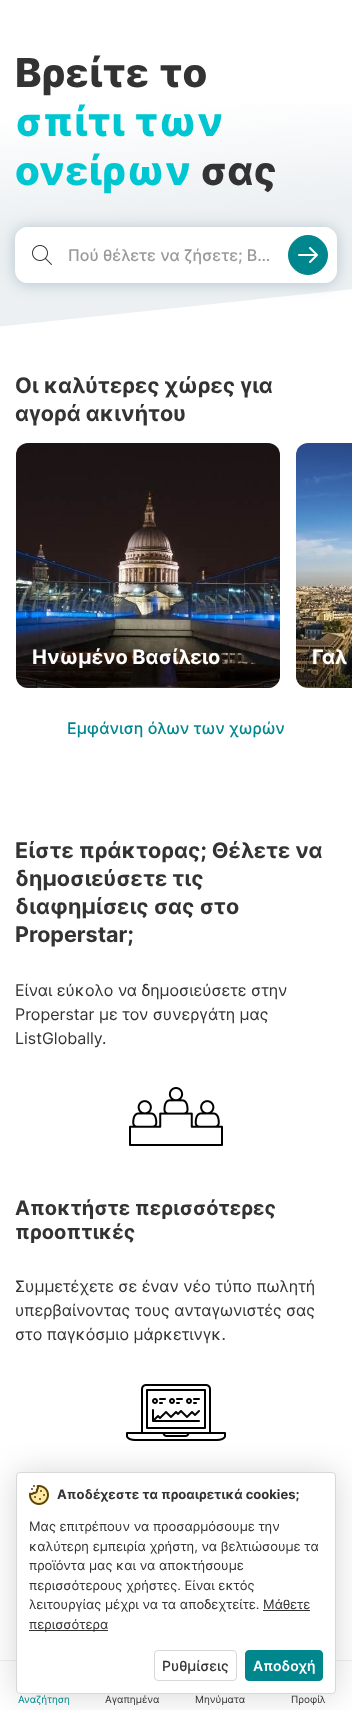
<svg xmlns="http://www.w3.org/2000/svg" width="352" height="1710">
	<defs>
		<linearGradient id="g1" gradientUnits="userSpaceOnUse" x1="160" y1="-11" x2="192" y2="442"><stop offset="0.25" stop-color="#FFFFFF" /><stop offset="0.5" stop-color="#ECF0F2" /></linearGradient>
		<clipPath id="clip1"><rect x="0" y="0" width="352" height="431" /></clipPath>
		<linearGradient id="g2" gradientUnits="userSpaceOnUse" x1="148" y1="688" x2="148" y2="626"><stop offset="0" stop-color="#000000" stop-opacity="0.5" /><stop offset="1" stop-color="#000000" stop-opacity="0" /></linearGradient>
		<linearGradient id="g3" gradientUnits="userSpaceOnUse" x1="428" y1="688" x2="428" y2="626"><stop offset="0" stop-color="#000000" stop-opacity="0.5" /><stop offset="1" stop-color="#000000" stop-opacity="0" /></linearGradient>
	</defs>
	<rect width="100%" height="100%" fill="#FFFFFF" />
	<text x="15" y="87" font-family="Inter" font-size="40" font-weight="800" fill="#333333">Βρείτε το</text>
	<rect x="0" y="104" width="352" height="223" fill="url(#g1)" />
	<g font-family="Inter" font-size="40" font-weight="800" fill="#00C6D1">
		<text x="15" y="136">σπίτι των</text>
		<text x="15" y="185">ονείρων</text>
	</g>
	<text x="200" y="185" font-family="Inter" font-size="40" font-weight="800" fill="#333333">σας</text>
	<g clip-path="url(#clip1)">
		<path d="M-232 351L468 277L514 706L-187 779Z" fill="#FFFFFF" />
	</g>
	<rect x="15" y="228" width="322" height="56" rx="12" fill="#12446D" fill-opacity="0.25" filter="blur(7.5px)" />
	<rect x="15.5" y="227.5" width="321" height="55" rx="11.5" fill="#FFFFFF" stroke="#FFFFFF" />
	<image x="32" y="245" width="20" height="20" href="assets/img1.png" />
	<text x="68" y="261" font-family="Inter" font-size="16" font-weight="500" fill="#999999">Πού θέλετε να ζήσετε; Β…</text>
	<circle cx="308" cy="255" r="19.5" fill="#00878E" stroke="#00878E" />
	<image x="298" y="247" width="20" height="16" href="assets/img2.png" />
	<g font-family="Inter" font-size="21.5" font-weight="700" fill="#333333">
		<text x="15" y="393">Οι καλύτερες χώρες για</text>
		<text x="15" y="421">αγορά ακινήτου</text>
	</g>
	<image x="16" y="443" width="264" height="245" href="assets/img3.png" />
	<path d="M16 626H280V676C280 682.5 274.5 688 268 688H28C21.5 688 16 682.5 16 676Z" fill="url(#g2)" />
	<text x="32" y="664" font-family="Inter" font-size="20" font-weight="700" fill="#FFFFFF">Ηνωμένο Βασίλειο</text>
	<image x="296" y="443" width="56" height="245" href="assets/img4.png" />
	<path d="M296 626H352V688H308C301.5 688 296 682.5 296 676Z" fill="url(#g3)" />
	<text x="312" y="664" font-family="Inter" font-size="20" font-weight="700" fill="#FFFFFF">Γαλ</text>
	<text x="67" y="734" font-family="Inter" font-size="16" font-weight="500" fill="#00878E">Εμφάνιση όλων των χωρών</text>
	<g font-family="Inter" font-size="21.5" font-weight="700" fill="#333333">
		<text x="15" y="858">Είστε πράκτορας; Θέλετε να</text>
		<text x="15" y="886">δημοσιεύσετε τις</text>
		<text x="15" y="914">διαφημίσεις σας στο</text>
		<text x="15" y="942">Properstar;</text>
	</g>
	<g font-family="Inter" font-size="16" fill="#333333">
		<text x="15" y="996">Είναι εύκολο να δημοσιεύσετε στην</text>
		<text x="15" y="1020">Properstar με τον συνεργάτη μας</text>
		<text x="15" y="1044">ListGlobally.</text>
	</g>
	<image x="129" y="1087" width="94" height="59" href="assets/img5.png" />
	<g font-family="Inter" font-size="20" font-weight="700" fill="#333333">
		<text x="15" y="1215">Αποκτήστε περισσότερες</text>
		<text x="15" y="1239">προοπτικές</text>
	</g>
	<g font-family="Inter" font-size="16" fill="#333333">
		<text x="15" y="1292">Συμμετέχετε σε έναν νέο τύπο πωλητή</text>
		<text x="15" y="1316">υπερβαίνοντας τους ανταγωνιστές σας</text>
		<text x="15" y="1340">στο παγκόσμιο μάρκετινγκ.</text>
	</g>
	<image x="126" y="1384" width="100" height="57" href="assets/img6.png" />
	<rect x="0" y="1660" width="352" height="1" fill="#EEEEEE" />
	<rect x="16" y="1473" width="320" height="222" rx="4" fill="#000000" fill-opacity="0.16" filter="blur(16px)" />
	<rect x="16.5" y="1472.5" width="319" height="221" rx="3.5" fill="#FFFFFF" stroke="#D8D8D8" />
	<image x="29" y="1485" width="20" height="20" href="assets/img7.png" />
	<text x="57" y="1499" font-family="Inter" font-size="13" font-weight="700" fill="#333333">Αποδέχεστε τα προαιρετικά cookies;</text>
	<g font-family="Inter" font-size="13" fill="#333333">
		<text x="29" y="1531">Μας επιτρέπουν να προσαρμόσουμε την</text>
		<text x="29" y="1551">καλύτερη εμπειρία χρήστη, να βελτιώσουμε τα</text>
		<text x="29" y="1570">προϊόντα μας και να αποκτήσουμε</text>
		<text x="29" y="1590">περισσότερους χρήστες. Είναι εκτός</text>
		<text x="29" y="1609">λειτουργίας μέχρι να τα αποδεχτείτε. Μάθετε</text>
	</g>
	<rect x="29" y="1630" width="79" height="1" fill="#333333" />
	<text x="29" y="1629" font-family="Inter" font-size="13" fill="#333333">περισσότερα</text>
	<rect x="263" y="1610" width="47" height="1" fill="#333333" />
	<rect x="154.5" y="1650.5" width="82" height="30" rx="3.5" fill="none" stroke="#D8D8D8" />
	<text x="162" y="1671" font-family="Inter" font-size="14" font-weight="500" fill="#333333">Ρυθμίσεις</text>
	<rect x="245.5" y="1650.5" width="77" height="30" rx="3.5" fill="#00878E" stroke="#00878E" />
	<text x="253" y="1671" font-family="Inter" font-size="14" font-weight="600" fill="#FFFFFF">Αποδοχή</text>
	<text x="18" y="1703" font-family="Inter" font-size="10" fill="#00878E">Αναζήτηση</text>
	<g font-family="Inter" font-size="10" fill="#333333">
		<text x="105" y="1703">Αγαπημένα</text>
		<text x="195" y="1703">Μηνύματα</text>
		<text x="291" y="1703">Προφίλ</text>
	</g>
</svg>
